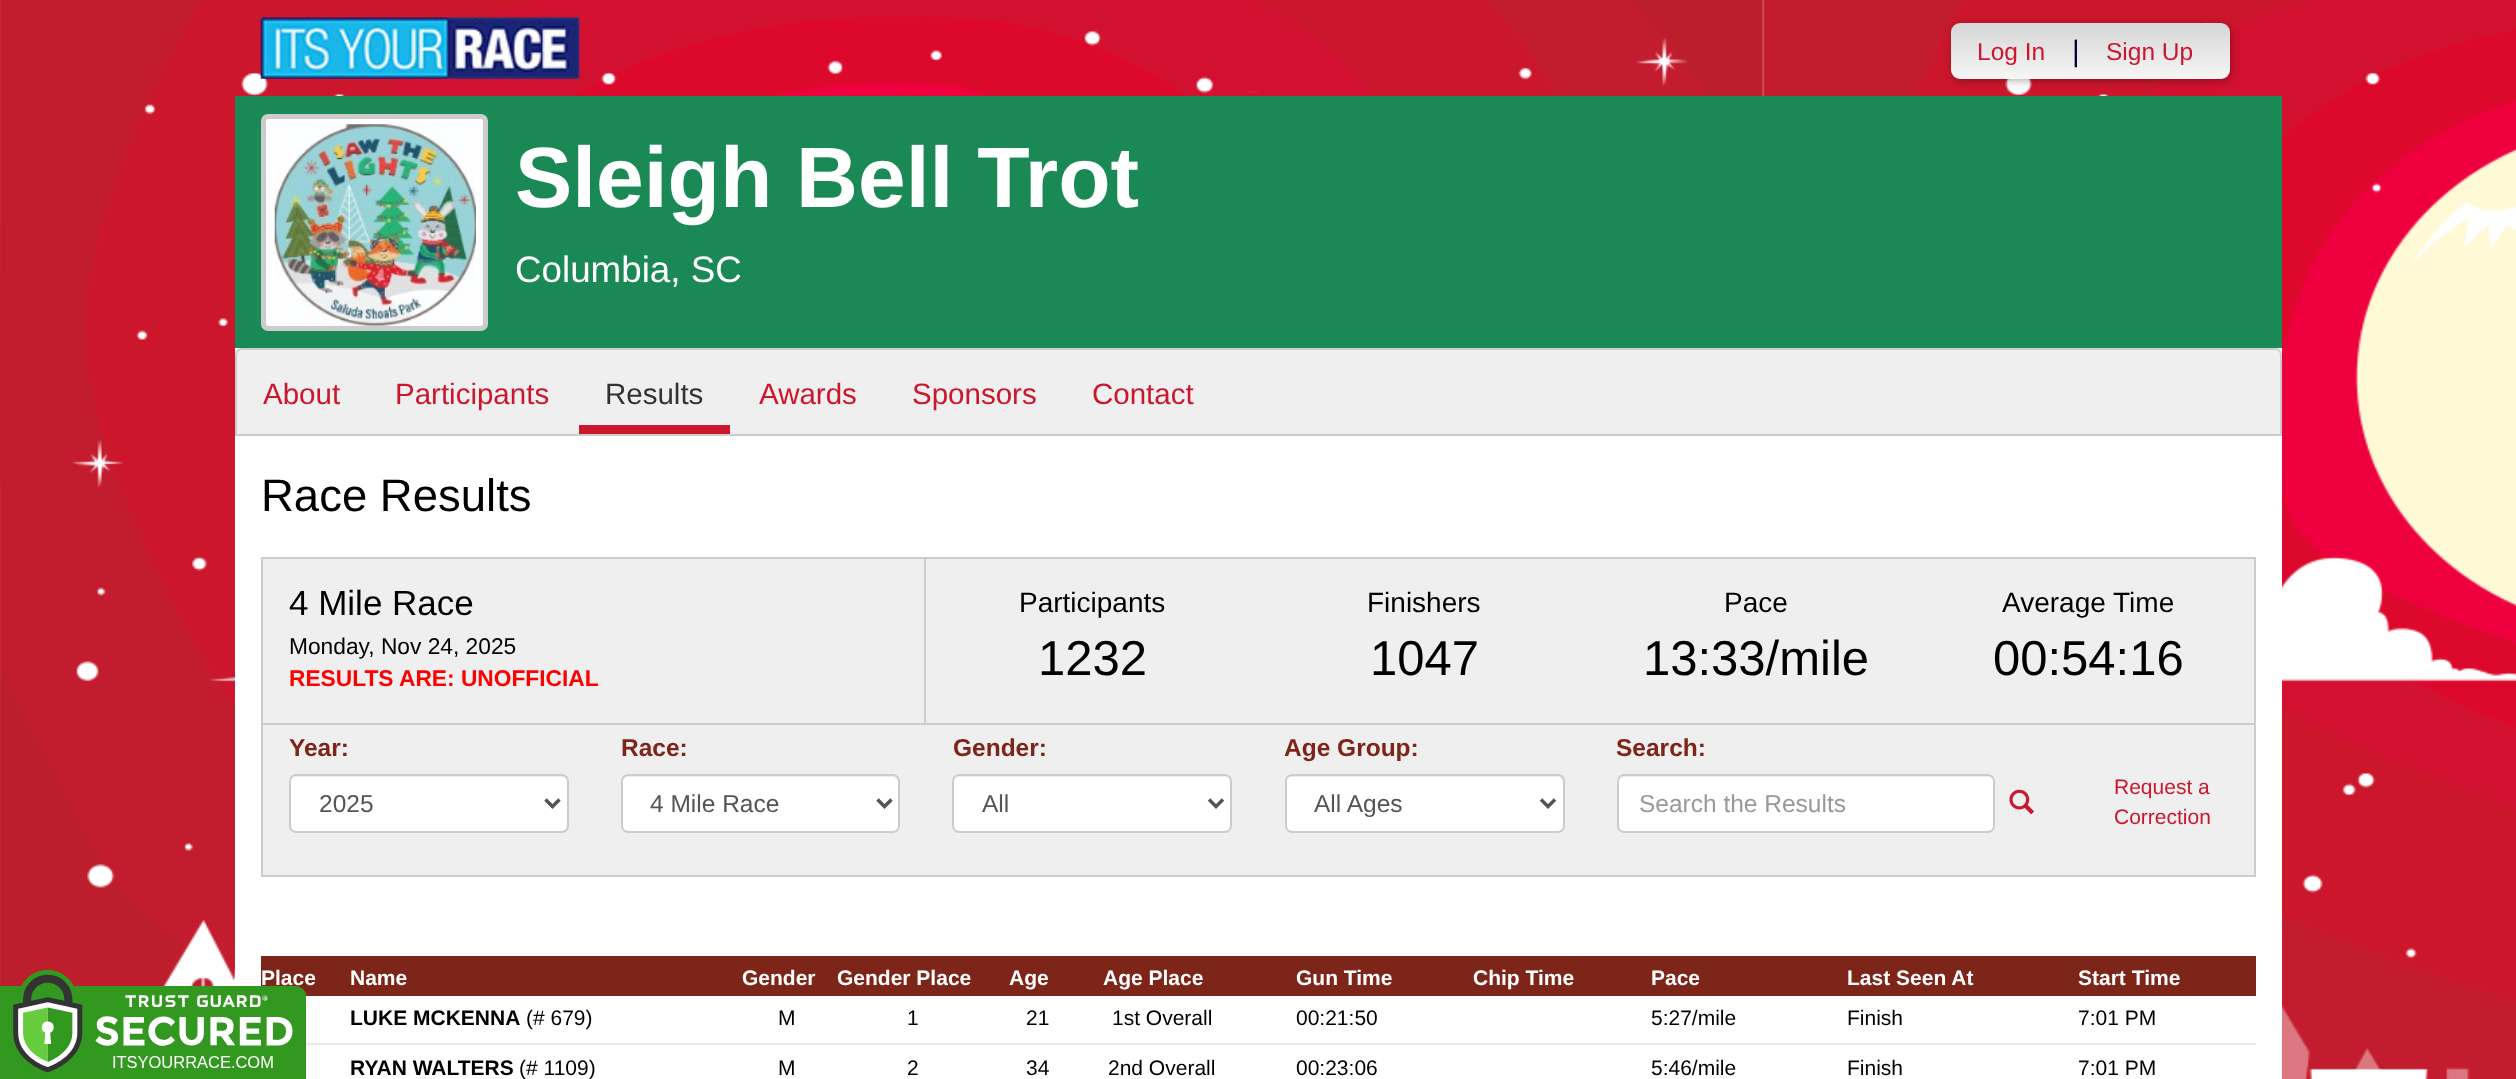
<svg xmlns="http://www.w3.org/2000/svg" width="2516" height="1079">
	<defs>
		<linearGradient id="g1" gradientUnits="userSpaceOnUse" x1="2090" y1="23" x2="2090" y2="79"><stop offset="0" stop-color="#D6D6D6" /><stop offset="1" stop-color="#F6F6F6" /></linearGradient>
	</defs>
	<rect width="100%" height="100%" fill="#FFFFFF" />
	<image x="0" y="0" width="2516" height="1079" href="assets/img1.png" />
	<rect x="235" y="348" width="2047" height="731" fill="#FFFFFF" />
	<rect x="261" y="956" width="1995" height="38" fill="#7D2519" />
	<text x="261" y="985" font-family="Liberation Sans" font-size="21" font-weight="700" fill="#FFFFFF">Place</text>
	<image x="0" y="970" width="306" height="109" href="assets/img2.png" />
	<image x="260" y="17" width="320" height="62" href="assets/img3.png" />
	<rect x="1953" y="25" width="278" height="56" rx="9" fill="#000000" fill-opacity="0.3" filter="blur(4.5px)" />
	<rect x="1951" y="23" width="279" height="56" rx="9" fill="url(#g1)" />
	<text x="1977" y="60" font-family="Liberation Sans" font-size="24.5" fill="#CC162C">Log In</text>
	<text x="2072" y="61" font-family="Liberation Sans" font-size="29.5" fill="#040438">|</text>
	<text x="2106" y="60" font-family="Liberation Sans" font-size="24.5" fill="#CC162C">Sign Up</text>
	<rect x="235" y="96" width="2047" height="252" fill="#1A8956" />
	<rect x="263.5" y="116.5" width="222" height="212" rx="4.5" fill="#FFFFFF" stroke="#CCCCCC" stroke-width="5" />
	<image x="274" y="124" width="202" height="202" href="assets/img4.png" />
	<text x="515" y="207" font-family="Liberation Sans" font-size="85.75" font-weight="700" fill="#FFFFFF">Sleigh Bell Trot</text>
	<text x="515" y="282" font-family="Liberation Sans" font-size="36.75" fill="#FFFFFF">Columbia, SC</text>
	<path d="M242 349H2275C2278.5 349 2281 351.5 2281 355V435H236V355C236 351.5 238.5 349 242 349Z" fill="#EFEFEF" stroke="#CCCCCC" stroke-width="2" />
	<g font-family="Liberation Sans" font-size="29.5" fill="#CC162C">
		<text x="263" y="404">About</text>
		<text x="395" y="404">Participants</text>
	</g>
	<rect x="579" y="425" width="151" height="9" fill="#CC162C" />
	<text x="605" y="404" font-family="Liberation Sans" font-size="29.5" fill="#333333">Results</text>
	<g font-family="Liberation Sans" font-size="29.5" fill="#CC162C">
		<text x="759" y="404">Awards</text>
		<text x="912" y="404">Sponsors</text>
		<text x="1092" y="404">Contact</text>
	</g>
	<text x="261" y="511" font-family="Liberation Sans" font-size="45.5" fill="#000000">Race Results</text>
	<rect x="262" y="558" width="1993" height="318" fill="#EFEFEF" stroke="#CCCCCC" stroke-width="2" />
	<rect x="924" y="558" width="2" height="165" fill="#CCCCCC" />
	<text x="289" y="615" font-family="Liberation Sans" font-size="35" fill="#000000">4 Mile Race</text>
	<text x="289" y="654" font-family="Liberation Sans" font-size="22.75" fill="#000000">Monday, Nov 24, 2025</text>
	<text x="289" y="686" font-family="Liberation Sans" font-size="22.75" font-weight="700" fill="#FF0000">RESULTS ARE: UNOFFICIAL</text>
	<text x="1019" y="612" font-family="Liberation Sans" font-size="28" fill="#000000">Participants</text>
	<text x="1038" y="675" font-family="Liberation Sans" font-size="49" fill="#000000">1232</text>
	<text x="1367" y="612" font-family="Liberation Sans" font-size="28" fill="#000000">Finishers</text>
	<text x="1370" y="675" font-family="Liberation Sans" font-size="49" fill="#000000">1047</text>
	<text x="1724" y="612" font-family="Liberation Sans" font-size="28" fill="#000000">Pace</text>
	<text x="1643" y="675" font-family="Liberation Sans" font-size="49" fill="#000000">13:33/mile</text>
	<text x="2002" y="612" font-family="Liberation Sans" font-size="28" fill="#000000">Average Time</text>
	<text x="1993" y="675" font-family="Liberation Sans" font-size="49" fill="#000000">00:54:16</text>
	<rect x="263" y="723" width="1991" height="2" fill="#CCCCCC" />
	<text x="289" y="756" font-family="Liberation Sans" font-size="24.5" font-weight="700" fill="#7D2519">Year:</text>
	<rect x="289" y="774" width="280" height="59" rx="7" fill="#FFFFFF" />
	<path d="M296 777H562C565 777 567 779 567 782V780C567 777 565 775 562 775H296C294 775 291 777 291 779C292 778 294 777 296 777Z" fill="#ECECEC" />
	<rect x="290" y="775" width="278" height="57" rx="6" fill="none" stroke="#CCCCCC" stroke-width="2" />
	<path d="M545.5 799.5L552.5 806.5L559.5 799.5" fill="none" stroke="#555555" stroke-width="3.5" />
	<text x="319" y="812" font-family="Liberation Sans" font-size="24.5" fill="#555555">2025</text>
	<text x="621" y="756" font-family="Liberation Sans" font-size="24.5" font-weight="700" fill="#7D2519">Race:</text>
	<rect x="621" y="774" width="279" height="59" rx="7" fill="#FFFFFF" />
	<path d="M628 777H892C895 777 898 779 898 782V780C898 777 896 775 893 775H628C625 775 623 777 623 780V782C623 779 625 777 628 777Z" fill="#ECECEC" />
	<rect x="622" y="775" width="277" height="57" rx="6" fill="none" stroke="#CCCCCC" stroke-width="2" />
	<path d="M877.5 799.5L884.5 806.5L891.5 799.5" fill="none" stroke="#555555" stroke-width="3.5" />
	<text x="650" y="812" font-family="Liberation Sans" font-size="24.5" fill="#555555">4 Mile Race</text>
	<text x="953" y="756" font-family="Liberation Sans" font-size="24.5" font-weight="700" fill="#7D2519">Gender:</text>
	<rect x="952" y="774" width="280" height="59" rx="7" fill="#FFFFFF" />
	<path d="M959 777H1225C1228 777 1230 779 1230 782V780C1230 777 1228 775 1225 775H959C956 775 954 777 954 780V782C954 779 956 777 959 777Z" fill="#ECECEC" />
	<rect x="953" y="775" width="278" height="57" rx="6" fill="none" stroke="#CCCCCC" stroke-width="2" />
	<path d="M1209 799.5L1216 806.5L1223 799.5" fill="none" stroke="#555555" stroke-width="3.5" />
	<text x="982" y="812" font-family="Liberation Sans" font-size="24.5" fill="#555555">All</text>
	<text x="1284" y="756" font-family="Liberation Sans" font-size="24.5" font-weight="700" fill="#7D2519">Age Group:</text>
	<rect x="1285" y="774" width="280" height="59" rx="7" fill="#FFFFFF" />
	<path d="M1292 777H1558C1560 777 1563 779 1563 782V780C1563 777 1561 775 1558 775H1291C1288 775 1286 777 1286 780V782C1286 779 1289 777 1292 777Z" fill="#ECECEC" />
	<rect x="1286" y="775" width="278" height="57" rx="6" fill="none" stroke="#CCCCCC" stroke-width="2" />
	<path d="M1541 799.5L1548 806.5L1555 799.5" fill="none" stroke="#555555" stroke-width="3.5" />
	<text x="1314" y="812" font-family="Liberation Sans" font-size="24.5" fill="#555555">All Ages</text>
	<text x="1616" y="756" font-family="Liberation Sans" font-size="24.5" font-weight="700" fill="#7D2519">Search:</text>
	<rect x="1617" y="774" width="378" height="59" rx="7" fill="#FFFFFF" />
	<path d="M1624 777H1988C1991 777 1993 779 1993 782C1993 779 1992 775 1988 775H1624C1620 775 1619 779 1619 782C1619 779 1621 777 1624 777Z" fill="#ECECEC" />
	<rect x="1618" y="775" width="376" height="57" rx="6" fill="none" stroke="#CCCCCC" stroke-width="2" />
	<text x="1639" y="812" font-family="Liberation Sans" font-size="24.5" fill="#999999">Search the Results</text>
	<image x="2009" y="789" width="25" height="26" href="assets/img5.png" />
	<g font-family="Liberation Sans" font-size="21" fill="#CC162C">
		<text x="2114" y="794">Request a</text>
		<text x="2114" y="824">Correction</text>
	</g>
	<g font-family="Liberation Sans" font-size="21" font-weight="700" fill="#FFFFFF">
		<text x="350" y="985">Name</text>
		<text x="742" y="985">Gender</text>
		<text x="837" y="985">Gender Place</text>
		<text x="1009" y="985">Age</text>
		<text x="1103" y="985">Age Place</text>
		<text x="1296" y="985">Gun Time</text>
		<text x="1473" y="985">Chip Time</text>
		<text x="1651" y="985">Pace</text>
		<text x="1847" y="985">Last Seen At</text>
	</g>
	<rect x="306" y="994" width="1950" height="2" fill="#7D2519" />
	<text x="2078" y="985" font-family="Liberation Sans" font-size="21" font-weight="700" fill="#FFFFFF">Start Time</text>
	<text x="350" y="1025" font-family="Liberation Sans" font-size="21" font-weight="700" fill="#000000">LUKE MCKENNA</text>
	<g font-family="Liberation Sans" font-size="21" fill="#000000">
		<text x="526" y="1025">(# 679)</text>
		<text x="778" y="1025">M</text>
		<text x="907" y="1025">1</text>
		<text x="1026" y="1025">21</text>
		<text x="1112" y="1025">1st Overall</text>
		<text x="1296" y="1025">00:21:50</text>
		<text x="1651" y="1025">5:27/mile</text>
		<text x="1847" y="1025">Finish</text>
	</g>
	<rect x="306" y="1043" width="1950" height="2" fill="#EFE9E2" />
	<text x="2078" y="1025" font-family="Liberation Sans" font-size="21" fill="#000000">7:01 PM</text>
	<text x="350" y="1075" font-family="Liberation Sans" font-size="21" font-weight="700" fill="#000000">RYAN WALTERS</text>
	<g font-family="Liberation Sans" font-size="21" fill="#000000">
		<text x="519" y="1075">(# 1109)</text>
		<text x="778" y="1075">M</text>
		<text x="907" y="1075">2</text>
		<text x="1026" y="1075">34</text>
		<text x="1108" y="1075">2nd Overall</text>
		<text x="1296" y="1075">00:23:06</text>
		<text x="1651" y="1075">5:46/mile</text>
		<text x="1847" y="1075">Finish</text>
		<text x="2078" y="1075">7:01 PM</text>
	</g>
</svg>
